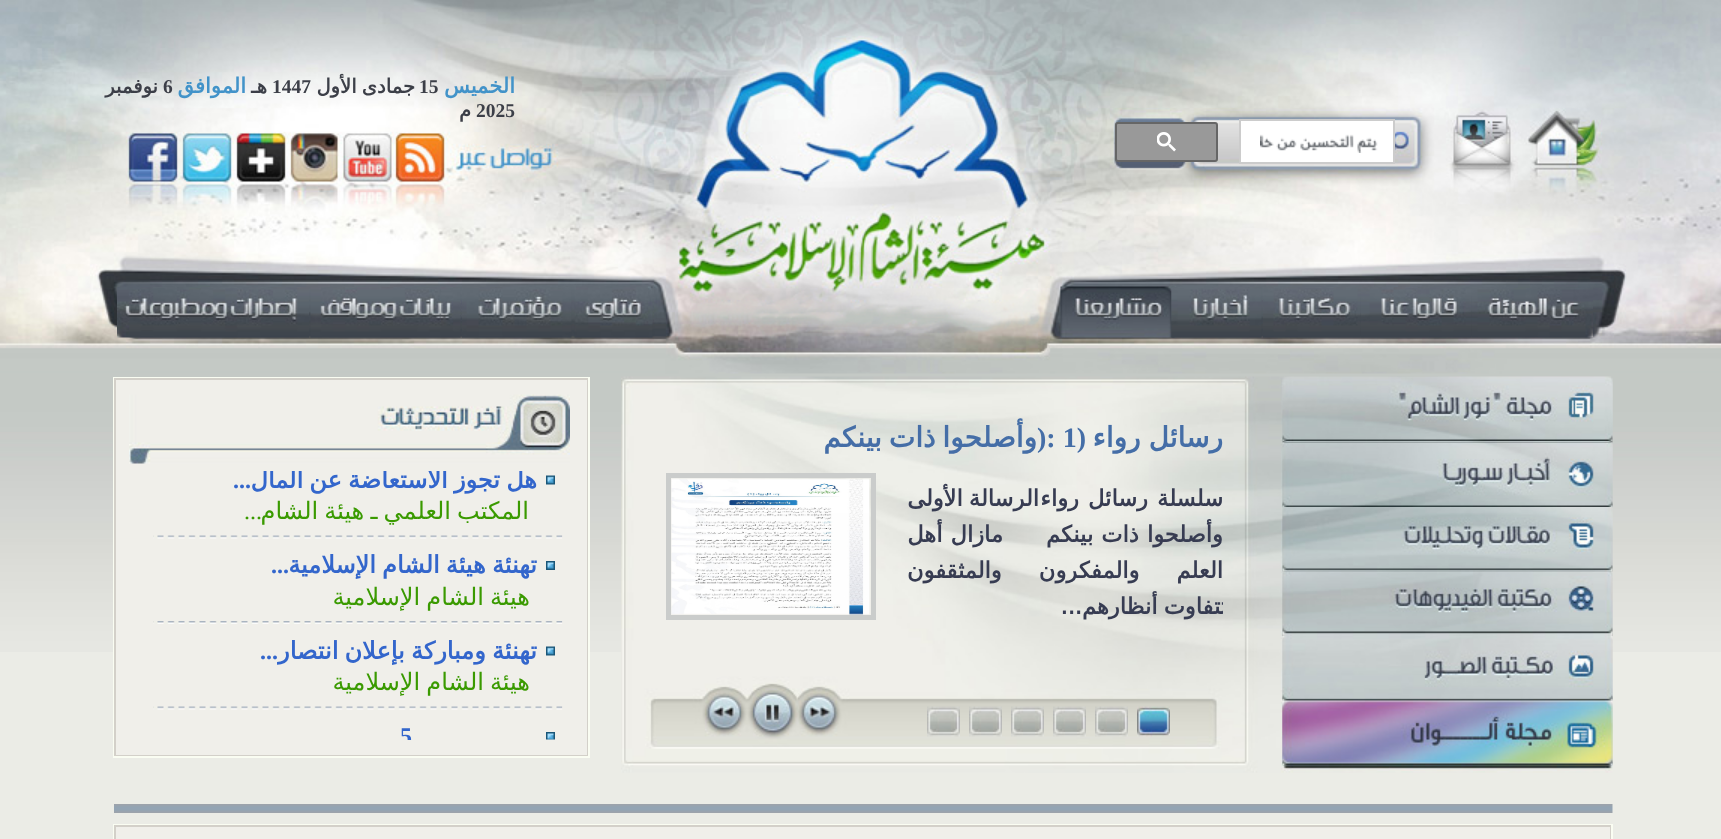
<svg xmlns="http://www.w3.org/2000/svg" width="1721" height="839">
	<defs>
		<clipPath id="clip1"><rect x="659" y="413" width="564" height="244" /></clipPath>
		<clipPath id="clip2"><rect x="153" y="471" width="410" height="269" /></clipPath>
	</defs>
	<rect width="100%" height="100%" fill="#EBECE6" />
	<image x="0" y="373" width="1721" height="279" href="assets/img1.png" />
	<image x="0" y="0" width="1721" height="374" href="assets/img2.png" />
	<text x="515" y="93" font-family="DejaVu Sans" font-size="21" font-weight="700" direction="rtl" fill="#4293C9">الخميس</text>
	<text x="419" y="93" font-family="Liberation Serif" font-size="19.5" font-weight="700" fill="#3C3F48">15</text>
	<text x="415" y="93" word-spacing="-1" font-family="DejaVu Sans" font-size="19.5" font-weight="700" direction="rtl" fill="#3C3F48">جمادى الأول</text>
	<text x="272" y="93" font-family="Liberation Serif" font-size="19.5" font-weight="700" fill="#3C3F48">1447</text>
	<text x="267" y="93" font-family="DejaVu Sans" font-size="19.5" font-weight="700" direction="rtl" fill="#3C3F48">هـ</text>
	<text x="246" y="93" font-family="DejaVu Sans" font-size="21" font-weight="700" direction="rtl" fill="#4293C9">الموافق</text>
	<text x="163" y="93" font-family="Liberation Serif" font-size="19.5" font-weight="700" fill="#3C3F48">6</text>
	<text x="158" y="93" font-family="DejaVu Sans" font-size="19.5" font-weight="700" direction="rtl" fill="#3C3F48">نوفمبر</text>
	<text x="476" y="117" font-family="Liberation Serif" font-size="19.5" font-weight="700" fill="#3C3F48">2025</text>
	<text x="471" y="117" font-family="DejaVu Sans" font-size="19.5" font-weight="700" direction="rtl" fill="#3C3F48">م</text>
	<rect x="1240" y="120" width="154" height="43" fill="#FFFFFF" stroke="#CCCCCC" stroke-width="2" />
	<image x="1260" y="134" width="118" height="19" href="assets/img3.png" />
	<rect x="1116" y="123" width="101" height="38" rx="2" fill="#999999" stroke="#666666" stroke-width="2" />
	<image x="1157" y="132" width="19" height="20" href="assets/img4.png" />
	<image x="1471" y="288" width="122" height="50" href="assets/img5.png" />
	<image x="1360" y="287" width="112" height="51" href="assets/img6.png" />
	<image x="1263" y="287" width="98" height="51" href="assets/img7.png" />
	<image x="1060" y="286" width="116" height="52" href="assets/img9.png" />
	<image x="1171" y="287" width="91" height="51" href="assets/img8.png" />
	<image x="574" y="286" width="79" height="52" href="assets/img10.png" />
	<image x="462" y="287" width="110" height="51" href="assets/img11.png" />
	<image x="310" y="287" width="151" height="51" href="assets/img12.png" />
	<image x="117" y="287" width="192" height="51" href="assets/img13.png" />
	<image x="621" y="376" width="992" height="397" href="assets/img14.png" />
	<image x="1282" y="376" width="331" height="65" href="assets/img15.png" />
	<image x="1282" y="442" width="331" height="65" href="assets/img16.png" />
	<image x="1282" y="507" width="331" height="65" href="assets/img17.png" />
	<image x="1282" y="571" width="331" height="65" href="assets/img18.png" />
	<image x="1282" y="636" width="331" height="65" href="assets/img19.png" />
	<image x="1282" y="700" width="331" height="65" href="assets/img20.png" />
	<text x="1223" y="447" word-spacing="-1" font-family="DejaVu Sans" font-size="28" font-weight="700" direction="rtl" fill="#456EA7">رسائل رواء</text>
	<text x="1086" y="447" font-family="Liberation Serif" font-size="28" font-weight="700" direction="rtl" fill="#456EA7">(</text>
	<text x="1037" y="447" font-family="Liberation Serif" font-size="28" font-weight="700" fill="#456EA7">): 1</text>
	<text x="1037" y="447" word-spacing="-2" font-family="DejaVu Sans" font-size="28" font-weight="700" direction="rtl" fill="#456EA7">وأصلحوا ذات بينكم</text>
	<g font-family="DejaVu Sans" font-size="22.5" font-weight="700" direction="rtl" fill="#373C52">
		<text x="1223" y="506" word-spacing="2">سلسلة رسائل رواء</text>
		<text x="1039" y="506" word-spacing="-1">الرسالة الأولى</text>
		<text x="1223" y="542" word-spacing="1">وأصلحوا ذات بينكم</text>
		<text x="1003" y="542" word-spacing="1">مازال أهل</text>
		<text x="1223" y="578" word-spacing="30">العلم والمفكرون والمثقفون</text>
	</g>
	<g clip-path="url(#clip1)">
		<text x="1227" y="614" word-spacing="-1" font-family="DejaVu Sans" font-size="22.5" font-weight="700" direction="rtl" fill="#373C52">تتفاوت أنظارهم...</text>
	</g>
	<rect x="668.5" y="475.5" width="205" height="142" fill="none" stroke="#CACCCB" stroke-width="5" />
	<image x="671" y="478" width="199" height="137" href="assets/img21.png" />
	<image x="1137" y="706" width="33" height="31" href="assets/img22.png" />
	<image x="1095" y="706" width="33" height="31" href="assets/img23.png" />
	<image x="1053" y="706" width="33" height="31" href="assets/img24.png" />
	<image x="1011" y="706" width="33" height="31" href="assets/img25.png" />
	<image x="969" y="706" width="33" height="31" href="assets/img26.png" />
	<image x="927" y="706" width="33" height="31" href="assets/img26.png" />
	<rect x="114" y="378" width="475" height="379" fill="none" stroke="#FAFDF2" stroke-width="2" />
	<rect x="115" y="379" width="472" height="376" fill="none" stroke="#D3D0C9" stroke-width="2" />
	<rect x="116" y="380" width="471" height="375" fill="#F0EFEA" />
	<image x="129" y="394" width="441" height="70" href="assets/img27.png" />
	<image x="546" y="475" width="9" height="10" href="assets/img28.png" />
	<g clip-path="url(#clip2)">
		<text x="537" y="488" word-spacing="-1.5" font-family="DejaVu Sans" font-size="24" font-weight="700" direction="rtl" fill="#3366CC">هل تجوز الاستعاضة عن المال</text>
	</g>
	<text x="251" y="488" font-family="Liberation Serif" font-size="24" font-weight="700" direction="rtl" fill="#3366CC">...</text>
	<text x="529" y="519" word-spacing="-1.5" font-family="DejaVu Sans" font-size="24" direction="rtl" fill="#3A9A00">المكتب العلمي ـ هيئة الشام</text>
	<text x="262" y="519" font-family="Liberation Serif" font-size="24" direction="rtl" fill="#3A9A00">...</text>
	<image x="153" y="535" width="410" height="4" href="assets/img29.png" />
	<image x="546" y="561" width="9" height="9" href="assets/img30.png" />
	<text x="537" y="573" word-spacing="-1.5" font-family="DejaVu Sans" font-size="24" font-weight="700" direction="rtl" fill="#3366CC">تهنئة هيئة الشام الإسلامية</text>
	<text x="289" y="573" font-family="Liberation Serif" font-size="24" font-weight="700" direction="rtl" fill="#3366CC">...</text>
	<text x="530" y="605" word-spacing="-1.5" font-family="DejaVu Sans" font-size="24" direction="rtl" fill="#3A9A00">هيئة الشام الإسلامية</text>
	<image x="153" y="621" width="410" height="3" href="assets/img31.png" />
	<image x="546" y="646" width="9" height="10" href="assets/img28.png" />
	<text x="278" y="659" font-family="Liberation Serif" font-size="24" font-weight="700" direction="rtl" fill="#3366CC">...</text>
	<text x="537" y="659" word-spacing="-1.5" font-family="DejaVu Sans" font-size="24" font-weight="700" direction="rtl" fill="#3366CC">تهنئة ومباركة بإعلان انتصار</text>
	<text x="530" y="690" word-spacing="-1.5" font-family="DejaVu Sans" font-size="24" direction="rtl" fill="#3A9A00">هيئة الشام الإسلامية</text>
	<image x="153" y="706" width="410" height="4" href="assets/img32.png" />
	<image x="546" y="732" width="9" height="8" href="assets/img33.png" />
	<g clip-path="url(#clip2)">
		<text x="400" y="744" font-family="Liberation Serif" font-size="24" font-weight="700" fill="#3366CC">5</text>
	</g>
	<image x="114" y="804" width="1499" height="9" href="assets/img34.png" />
	<rect x="114" y="825" width="1498" height="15" fill="none" stroke="#FAFDF2" stroke-width="2" />
	<rect x="115" y="826" width="1495" height="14" fill="none" stroke="#D3D0C9" stroke-width="2" />
	<rect x="116" y="827" width="1494" height="12" fill="#F0EFEA" />
</svg>
